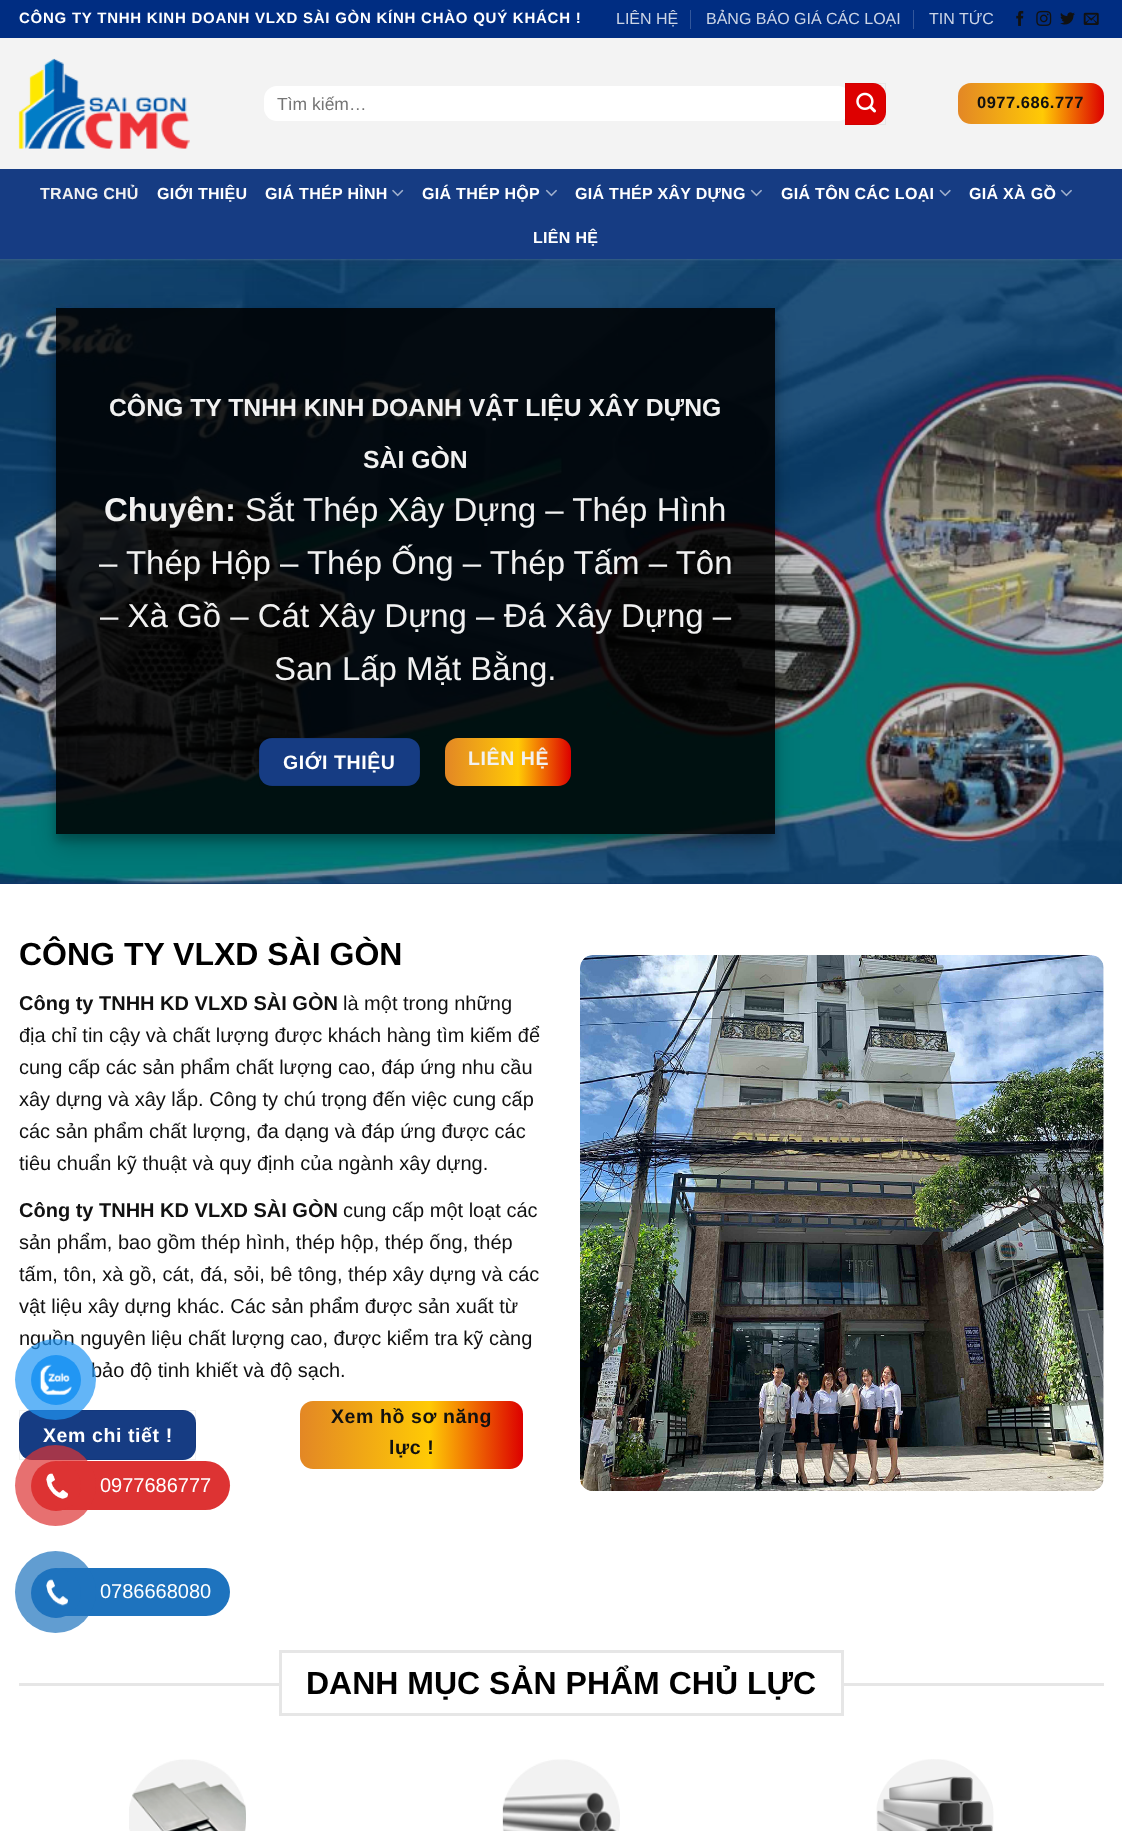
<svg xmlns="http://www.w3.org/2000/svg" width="1122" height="1831">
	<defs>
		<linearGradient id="g1" gradientUnits="userSpaceOnUse" x1="958" y1="103" x2="1104" y2="103"><stop offset="0" stop-color="#E38725" /><stop offset="0.58" stop-color="#FFCA05" /><stop offset="1" stop-color="#DD0000" /></linearGradient>
		<clipPath id="clip1"><path d="M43 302H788V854H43ZM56 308H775V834H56Z" clip-rule="evenodd" /></clipPath>
		<clipPath id="clip2"><path d="M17 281H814V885H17ZM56 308H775V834H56Z" clip-rule="evenodd" /></clipPath>
		<linearGradient id="g2" gradientUnits="userSpaceOnUse" x1="445" y1="762" x2="571" y2="762"><stop offset="0" stop-color="#E38725" /><stop offset="0.58" stop-color="#FFCA05" /><stop offset="1" stop-color="#DD0000" /></linearGradient>
		<linearGradient id="g3" gradientUnits="userSpaceOnUse" x1="300" y1="1435" x2="523" y2="1435"><stop offset="0" stop-color="#E38725" /><stop offset="0.58" stop-color="#FFCA05" /><stop offset="1" stop-color="#DD0000" /></linearGradient>
	</defs>
	<rect width="100%" height="100%" fill="#FFFFFF" />
	<rect x="0" y="0" width="1122" height="38" fill="#002D82" />
	<text x="19" y="23" font-family="Liberation Sans" font-size="15" font-weight="700" letter-spacing="0.75" fill="#FFFFFF">CÔNG TY TNHH KINH DOANH VLXD SÀI GÒN KÍNH CHÀO QUÝ KHÁCH !</text>
	<text x="616" y="24" font-family="Liberation Sans" font-size="16" fill="#CCD5E6">LIÊN HỆ</text>
	<rect x="690" y="10" width="1" height="19" fill="#33579B" />
	<text x="706" y="24" font-family="Liberation Sans" font-size="16" fill="#CCD5E6">BẢNG BÁO GIÁ CÁC LOẠI</text>
	<rect x="913" y="10" width="1" height="19" fill="#33579B" />
	<text x="929" y="24" font-family="Liberation Sans" font-size="16" fill="#CCD5E6">TIN TỨC</text>
	<image x="1016" y="10" width="8" height="16" href="assets/img1.png" />
	<image x="1036" y="10" width="16" height="16" href="assets/img2.png" />
	<image x="1060" y="12" width="15" height="13" href="assets/img3.png" />
	<image x="1083" y="12" width="16" height="13" href="assets/img4.png" />
	<rect x="0" y="38" width="1122" height="131" fill="#F2F2F2" fill-opacity="0.95" />
	<image x="18" y="58" width="172" height="91" href="assets/img5.png" />
	<rect x="264" y="86" width="587" height="35" rx="13" fill="#FFFFFF" />
	<text x="277" y="110" font-family="Liberation Sans" font-size="17.5" fill="#757575">Tìm kiếm…</text>
	<path d="M845 83H873C880 83 886 89 886 96V112C886 119 880 125 873 125H845Z" fill="#DD0000" />
	<rect x="845.5" y="83.5" width="40" height="41" fill="none" stroke="#000000" stroke-opacity="0.05" />
	<image x="856" y="92" width="20" height="21" href="assets/img6.png" />
	<rect x="958" y="83" width="146" height="41" rx="13" fill="url(#g1)" />
	<text x="977" y="108" font-family="Liberation Sans" font-size="16.5" font-weight="700" letter-spacing="0.5" fill="#111111">0977.686.777</text>
	<rect x="0" y="169" width="1122" height="90" fill="#163C83" />
	<text x="40" y="199" font-family="Liberation Sans" font-size="16" font-weight="700" letter-spacing="0.3" fill="#F1F1F1">TRANG CHỦ</text>
	<g font-family="Liberation Sans" font-size="16" font-weight="700" letter-spacing="0.3" fill="#FFFFFF">
		<text x="157" y="199">GIỚI THIỆU</text>
		<text x="265" y="199">GIÁ THÉP HÌNH</text>
	</g>
	<image x="392" y="189" width="12" height="8" href="assets/img7.png" />
	<text x="422" y="199" font-family="Liberation Sans" font-size="16" font-weight="700" letter-spacing="0.3" fill="#FFFFFF">GIÁ THÉP HỘP</text>
	<image x="545" y="189" width="12" height="8" href="assets/img8.png" />
	<text x="575" y="199" font-family="Liberation Sans" font-size="16" font-weight="700" letter-spacing="0.3" fill="#FFFFFF">GIÁ THÉP XÂY DỰNG</text>
	<image x="750" y="189" width="12" height="8" href="assets/img8.png" />
	<text x="781" y="199" font-family="Liberation Sans" font-size="16" font-weight="700" letter-spacing="0.3" fill="#FFFFFF">GIÁ TÔN CÁC LOẠI</text>
	<image x="939" y="189" width="12" height="8" href="assets/img9.png" />
	<text x="969" y="199" font-family="Liberation Sans" font-size="16" font-weight="700" letter-spacing="0.3" fill="#FFFFFF">GIÁ XÀ GỒ</text>
	<image x="1060" y="189" width="12" height="8" href="assets/img8.png" />
	<text x="533" y="243" font-family="Liberation Sans" font-size="16" font-weight="700" letter-spacing="0.3" fill="#FFFFFF">LIÊN HỆ</text>
	<rect x="0" y="883" width="1122" height="1" fill="#123069" />
	<image x="0" y="259" width="1122" height="625" href="assets/img10.png" />
	<g clip-path="url(#clip1)">
		<rect x="56" y="315" width="719" height="526" fill="#000000" fill-opacity="0.22" filter="blur(4px)" />
	</g>
	<g clip-path="url(#clip2)">
		<rect x="56" y="320" width="719" height="526" fill="#000000" fill-opacity="0.19" filter="blur(12.5px)" />
	</g>
	<rect x="56" y="308" width="719" height="526" fill="#000000" fill-opacity="0.86" />
	<g font-family="Liberation Sans" font-size="24.75" font-weight="700" fill="#F1F1F1">
		<text x="109" y="416">CÔNG TY TNHH KINH DOANH VẬT LIỆU XÂY DỰNG</text>
		<text x="363" y="468">SÀI GÒN</text>
	</g>
	<text x="104" y="521" font-family="Liberation Sans" font-size="33" font-weight="700" fill="#F1F1F1">Chuyên:</text>
	<g font-family="Liberation Sans" font-size="33" fill="#F1F1F1">
		<text x="245" y="521">Sắt Thép Xây Dựng – Thép Hình</text>
		<text x="99" y="574">– Thép Hộp – Thép Ống – Thép Tấm – Tôn</text>
		<text x="100" y="627">– Xà Gồ – Cát Xây Dựng – Đá Xây Dựng –</text>
		<text x="274" y="680">San Lấp Mặt Bằng.</text>
	</g>
	<rect x="259" y="738" width="161" height="48" rx="13" fill="#163C83" />
	<rect x="259.5" y="738.5" width="160" height="47" fill="none" stroke="#000000" stroke-opacity="0.05" />
	<text x="283" y="769" font-family="Liberation Sans" font-size="19.5" font-weight="700" letter-spacing="0.6" fill="#FFFFFF">GIỚI THIỆU</text>
	<rect x="445" y="738" width="126" height="48" rx="13" fill="url(#g2)" />
	<text x="468" y="765" font-family="Liberation Sans" font-size="19.5" font-weight="700" letter-spacing="0.6" fill="#F1F1F1">LIÊN HỆ</text>
	<text x="19" y="965" font-family="Liberation Sans" font-size="32" font-weight="700" fill="#000000">CÔNG TY VLXD SÀI GÒN</text>
	<text x="19" y="1010" font-family="Liberation Sans" font-size="20" font-weight="700" fill="#111111">Công ty TNHH KD VLXD SÀI GÒN</text>
	<g font-family="Liberation Sans" font-size="20" fill="#111111">
		<text x="343" y="1010">là một trong những</text>
		<text x="19" y="1042">địa chỉ tin cậy và chất lượng được khách hàng tìm kiếm để</text>
		<text x="19" y="1074">cung cấp các sản phẩm chất lượng cao, đáp ứng nhu cầu</text>
		<text x="19" y="1106">xây dựng và xây lắp. Công ty chú trọng đến việc cung cấp</text>
		<text x="19" y="1138">các sản phẩm chất lượng, đa dạng và đáp ứng được các</text>
		<text x="19" y="1170">tiêu chuẩn kỹ thuật và quy định của ngành xây dựng.</text>
	</g>
	<text x="19" y="1217" font-family="Liberation Sans" font-size="20" font-weight="700" fill="#111111">Công ty TNHH KD VLXD SÀI GÒN</text>
	<g font-family="Liberation Sans" font-size="20" fill="#111111">
		<text x="343" y="1217">cung cấp một loạt các</text>
		<text x="19" y="1249">sản phẩm, bao gồm thép hình, thép hộp, thép ống, thép</text>
		<text x="19" y="1281">tấm, tôn, xà gồ, cát, đá, sỏi, bê tông, thép xây dựng và các</text>
		<text x="19" y="1313">vật liệu xây dựng khác. Các sản phẩm được sản xuất từ</text>
		<text x="19" y="1345">nguồn nguyên liệu chất lượng cao, được kiểm tra kỹ càng</text>
		<text x="91" y="1377">bảo độ tinh khiết và độ sạch.</text>
	</g>
	<rect x="19" y="1410" width="177" height="50" rx="13" fill="#163C83" />
	<rect x="19.5" y="1410.5" width="176" height="49" fill="none" stroke="#000000" stroke-opacity="0.05" />
	<text x="43" y="1442" font-family="Liberation Sans" font-size="19.5" font-weight="700" letter-spacing="0.6" fill="#FFFFFF">Xem chi tiết !</text>
	<rect x="300" y="1401" width="223" height="68" rx="13" fill="url(#g3)" />
	<g font-family="Liberation Sans" font-size="19.5" font-weight="700" letter-spacing="0.6" fill="#111111">
		<text x="331" y="1423">Xem hồ sơ năng</text>
		<text x="389" y="1454">lực !</text>
	</g>
	<image x="580" y="955" width="524" height="536" href="assets/img11.png" />
	<rect x="19" y="1683" width="260" height="3" fill="#E6E6E6" />
	<rect x="280.5" y="1651.5" width="562" height="63" fill="none" stroke="#E6E6E6" stroke-width="3" />
	<text x="306" y="1694" font-family="Liberation Sans" font-size="32" font-weight="700" fill="#000000">DANH MỤC SẢN PHẨM CHỦ LỰC</text>
	<rect x="844" y="1683" width="260" height="3" fill="#E6E6E6" />
	<image x="129" y="1759" width="117" height="72" href="assets/img12.png" />
	<image x="502" y="1759" width="118" height="72" href="assets/img13.png" />
	<image x="876" y="1759" width="118" height="72" href="assets/img14.png" />
	<circle cx="55.5" cy="1379.5" r="40.5" fill="#2196F3" fill-opacity="0.7" />
	<circle cx="56" cy="1380" r="25" fill="#2196F3" />
	<image x="39" y="1364" width="33" height="32" href="assets/img15.png" />
	<rect x="38" y="1461" width="192" height="49" rx="24.5" fill="#DD3333" />
	<circle cx="55.5" cy="1485.5" r="40.5" fill="#DD3333" fill-opacity="0.7" />
	<circle cx="56" cy="1486" r="25" fill="#DD3333" />
	<image x="46" y="1473" width="22" height="26" href="assets/img16.png" />
	<text x="100" y="1492" font-family="Liberation Sans" font-size="20" fill="#FFFFFF">0977686777</text>
	<rect x="38" y="1568" width="192" height="48" rx="24" fill="#1E73BE" />
	<rect x="15" y="1551" width="81" height="82" rx="40.5" fill="#1E73BE" fill-opacity="0.7" />
	<circle cx="56" cy="1593" r="25" fill="#1E73BE" />
	<image x="46" y="1579" width="22" height="27" href="assets/img17.png" />
	<text x="100" y="1598" font-family="Liberation Sans" font-size="20" fill="#FFFFFF">0786668080</text>
</svg>
